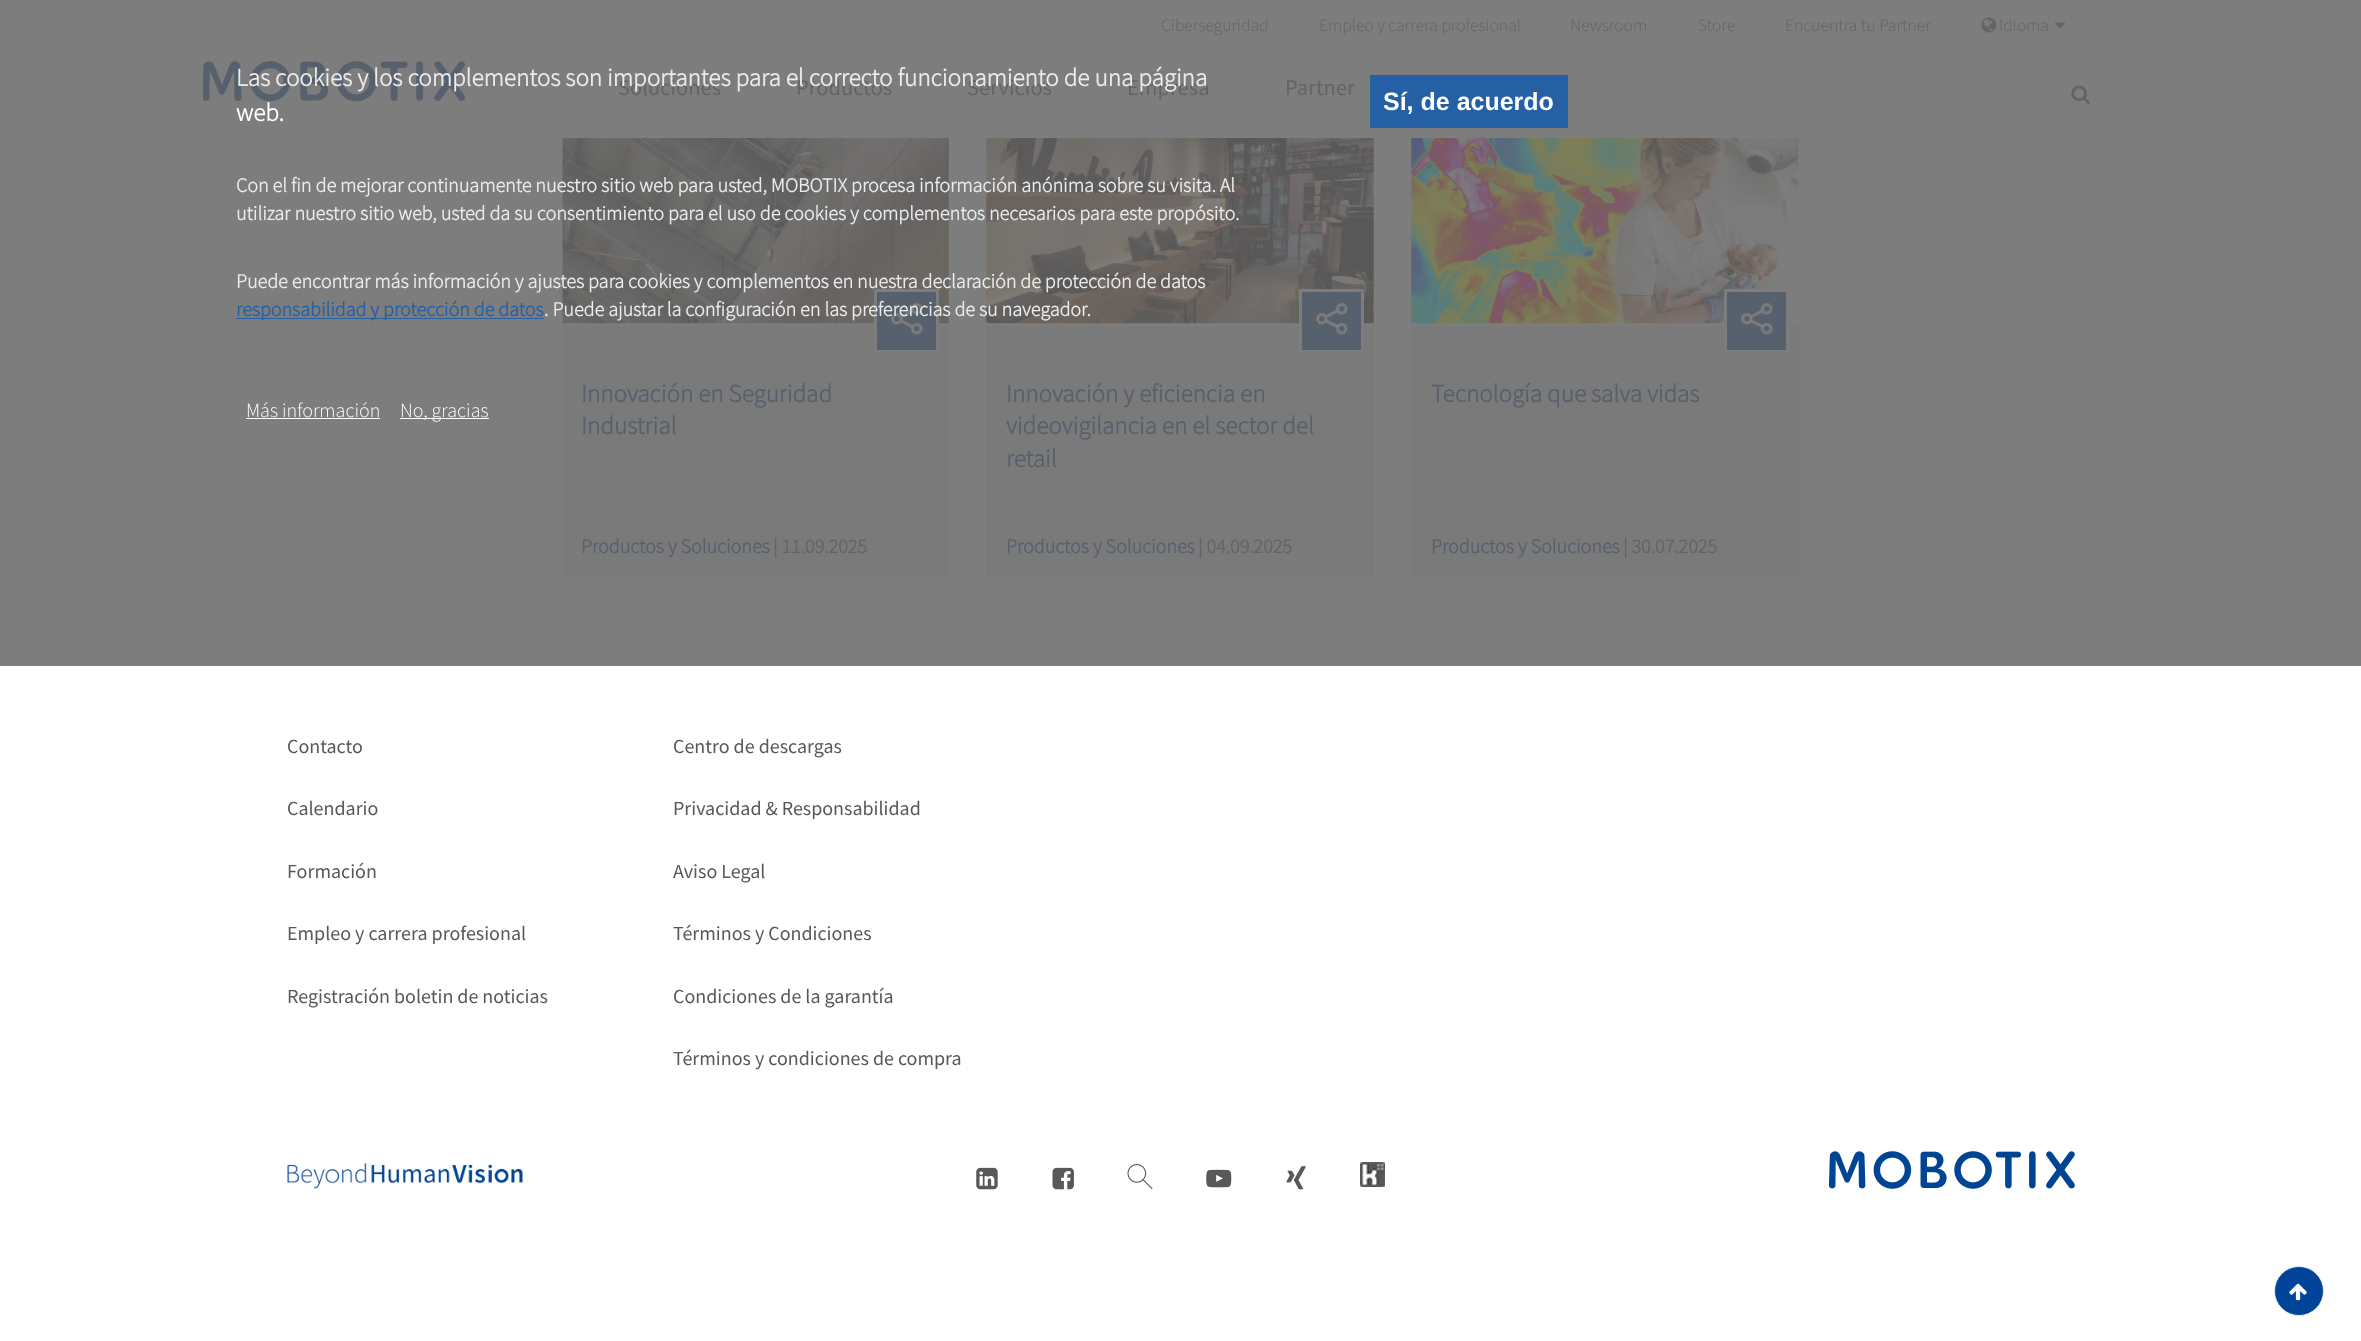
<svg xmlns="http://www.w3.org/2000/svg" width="2361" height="1341">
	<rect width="100%" height="100%" fill="#FFFFFF" />
	<rect x="0" y="0" width="2361" height="666" fill="#7D7D7D" />
	<g font-family="Source Sans Pro" font-size="17.5" font-weight="300" fill="#646464">
		<text x="1161" y="31">Ciberseguridad</text>
		<text x="1319" y="31">Empleo y carrera profesional</text>
		<text x="1570" y="31">Newsroom</text>
		<text x="1698" y="31">Store</text>
		<text x="1785" y="31">Encuentra tu Partner</text>
	</g>
	<image x="1981" y="17" width="16" height="16" href="assets/img1.png" />
	<text x="1999" y="31" font-family="Source Sans Pro" font-size="17.5" font-weight="300" fill="#646464">Idioma</text>
	<image x="2055" y="22" width="10" height="6" href="assets/img2.png" />
	<circle cx="2299" cy="1291" r="24.5" fill="#004499" stroke="#E9E9EA" />
	<image x="2289" y="1283" width="18" height="18" href="assets/img3.png" />
	<image x="203" y="61" width="262" height="41" href="assets/img4.png" />
	<g font-family="Source Sans Pro" font-size="22.5" fill="#646464">
		<text x="618" y="95">Soluciones</text>
		<text x="796" y="95">Productos</text>
		<text x="967" y="95">Servicios</text>
		<text x="1127" y="95">Empresa</text>
		<text x="1285" y="95">Partner</text>
	</g>
	<image x="2071" y="85" width="19" height="20" href="assets/img5.png" />
	<image x="562" y="138" width="387" height="186" href="assets/img6.png" />
	<rect x="563" y="326" width="386" height="250" fill="#7A7A7A" />
	<rect x="875.5" y="290.5" width="62" height="61" fill="#57616D" stroke="#7D7D7D" stroke-width="3" />
	<image x="891" y="303" width="32" height="32" href="assets/img7.png" />
	<g font-family="Source Sans Pro" font-size="25" font-weight="700" fill="#57616D">
		<text x="581" y="402">Innovación en Seguridad</text>
		<text x="581" y="434">Industrial</text>
	</g>
	<text x="581" y="553" font-family="Source Sans Pro" font-size="20" font-weight="700" fill="#57616D">Productos y Soluciones</text>
	<text x="773" y="553" font-family="Source Sans Pro" font-size="20" font-weight="700" fill="#646464">| 11.09.2025</text>
	<image x="986" y="138" width="388" height="186" href="assets/img8.png" />
	<rect x="986" y="326" width="388" height="250" fill="#7A7A7A" />
	<rect x="1300.5" y="290.5" width="62" height="61" fill="#57616D" stroke="#7D7D7D" stroke-width="3" />
	<image x="1316" y="303" width="32" height="32" href="assets/img7.png" />
	<g font-family="Source Sans Pro" font-size="25" font-weight="700" fill="#57616D">
		<text x="1006" y="402">Innovación y eficiencia en</text>
		<text x="1006" y="434">videovigilancia en el sector del</text>
		<text x="1006" y="467">retail</text>
	</g>
	<text x="1006" y="553" font-family="Source Sans Pro" font-size="20" font-weight="700" fill="#57616D">Productos y Soluciones</text>
	<text x="1198" y="553" font-family="Source Sans Pro" font-size="20" font-weight="700" fill="#646464">| 04.09.2025</text>
	<image x="1411" y="138" width="388" height="186" href="assets/img9.png" />
	<rect x="1411" y="326" width="388" height="250" fill="#7A7A7A" />
	<rect x="1725.5" y="290.5" width="62" height="61" fill="#57616D" stroke="#7D7D7D" stroke-width="3" />
	<image x="1741" y="303" width="32" height="32" href="assets/img7.png" />
	<text x="1431" y="402" font-family="Source Sans Pro" font-size="25" font-weight="700" fill="#57616D">Tecnología que salva vidas</text>
	<text x="1431" y="553" font-family="Source Sans Pro" font-size="20" font-weight="700" fill="#57616D">Productos y Soluciones</text>
	<text x="1623" y="553" font-family="Source Sans Pro" font-size="20" font-weight="700" fill="#646464">| 30.07.2025</text>
	<g font-family="Source Sans Pro" font-size="20" fill="#58585A">
		<text x="287" y="753">Contacto</text>
		<text x="287" y="815">Calendario</text>
		<text x="287" y="878">Formación</text>
		<text x="287" y="940">Empleo y carrera profesional</text>
		<text x="287" y="1003">Registración boletin de noticias</text>
		<text x="673" y="753">Centro de descargas</text>
		<text x="673" y="815">Privacidad &amp; Responsabilidad</text>
		<text x="673" y="878">Aviso Legal</text>
		<text x="673" y="940">Términos y Condiciones</text>
		<text x="673" y="1003">Condiciones de la garantía</text>
		<text x="673" y="1065">Términos y condiciones de compra</text>
	</g>
	<image x="287" y="1163" width="236" height="26" href="assets/img10.png" />
	<image x="976" y="1167" width="22" height="23" href="assets/img11.png" />
	<image x="1052" y="1167" width="22" height="23" href="assets/img12.png" />
	<image x="1127" y="1164" width="26" height="25" href="assets/img13.png" />
	<image x="1206" y="1169" width="26" height="19" href="assets/img14.png" />
	<image x="1286" y="1166" width="20" height="24" href="assets/img15.png" />
	<image x="1360" y="1162" width="25" height="25" href="assets/img16.png" />
	<image x="1829" y="1151" width="246" height="38" href="assets/img17.png" />
	<text x="236" y="86" font-family="Source Sans Pro" font-size="25" font-weight="700" fill="#EBEBEB">Las cookies y los complementos son importantes para el correcto funcionamiento de una página</text>
	<text x="236" y="121" font-family="Source Sans Pro" font-size="25" font-weight="700" fill="#FFFFFF">web.</text>
	<g font-family="Source Sans Pro" font-size="20" font-weight="700" fill="#EBEBEB">
		<text x="236" y="192">Con el fin de mejorar continuamente nuestro sitio web para usted, MOBOTIX procesa información anónima sobre su visita. Al</text>
		<text x="236" y="220">utilizar nuestro sitio web, usted da su consentimiento para el uso de cookies y complementos necesarios para este propósito.</text>
		<text x="236" y="288">Puede encontrar más información y ajustes para cookies y complementos en nuestra declaración de protección de datos</text>
	</g>
	<rect x="236" y="318" width="308" height="1" fill="#2660A4" />
	<text x="236" y="316" font-family="Source Sans Pro" font-size="20" font-weight="700" fill="#2660A4">responsabilidad y protección de datos</text>
	<text x="544" y="316" font-family="Source Sans Pro" font-size="20" font-weight="700" fill="#EBEBEB">. Puede ajustar la configuración en las preferencias de su navegador.</text>
	<text x="246" y="417" font-family="Source Sans Pro" font-size="20" font-weight="300" fill="#FFFFFF">Más información</text>
	<rect x="246" y="418" width="134" height="1" fill="#FFFFFF" />
	<rect x="400" y="418" width="89" height="1" fill="#FFFFFF" />
	<text x="400" y="417" font-family="Source Sans Pro" font-size="20" font-weight="300" fill="#FFFFFF">No, gracias</text>
	<rect x="1370" y="75" width="198" height="53" fill="#2660A4" />
	<text x="1383" y="110" font-family="Liberation Sans" font-size="25" font-weight="700" fill="#FFFFFF">Sí, de acuerdo</text>
</svg>
